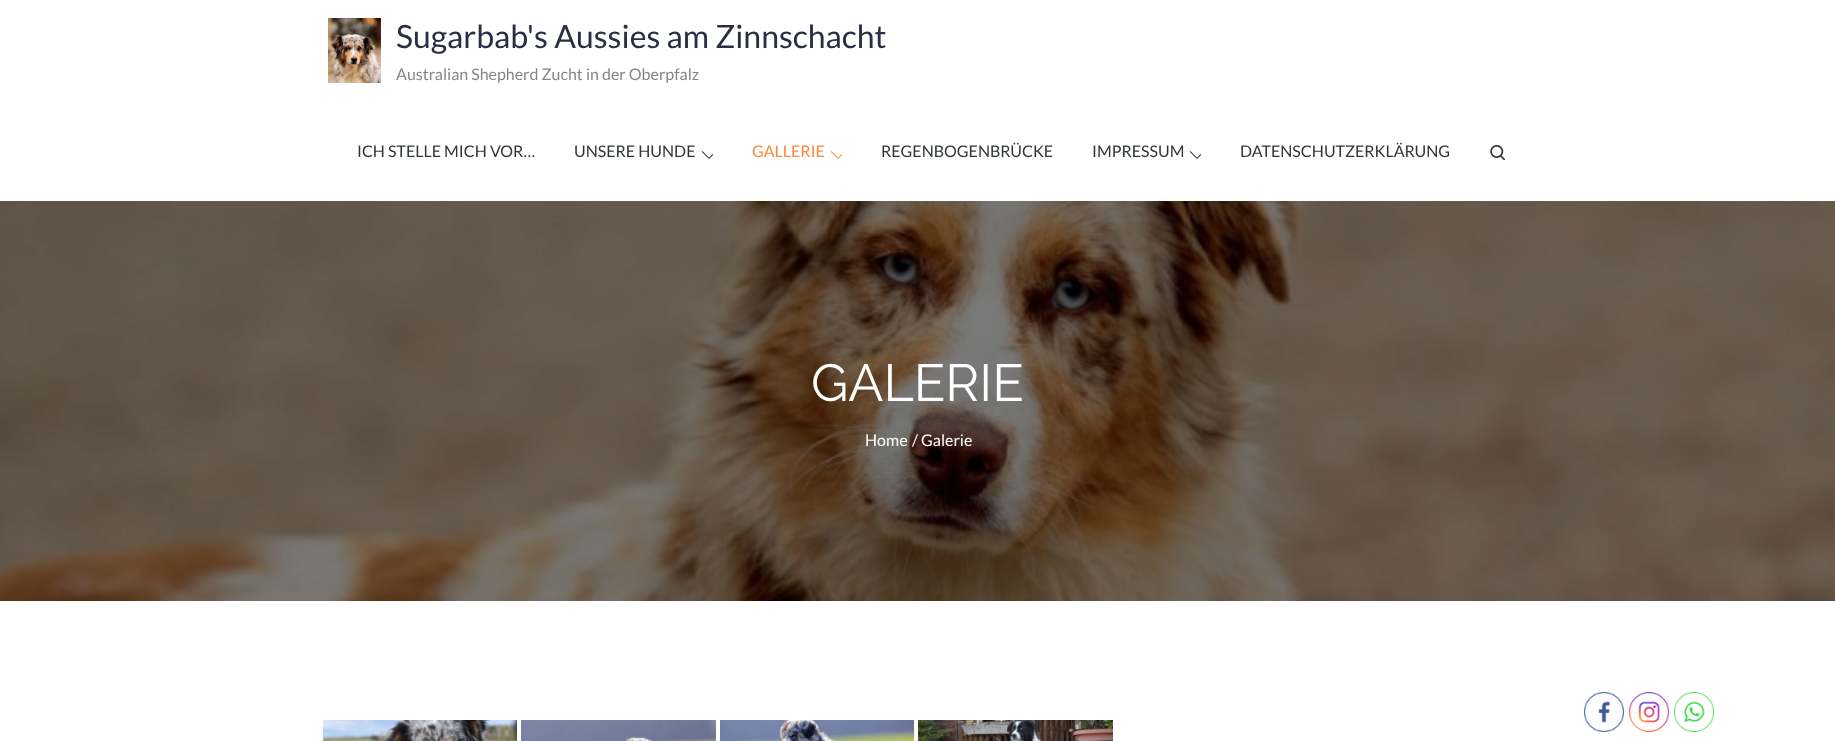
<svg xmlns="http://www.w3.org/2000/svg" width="1835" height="741">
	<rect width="100%" height="100%" fill="#FFFFFF" />
	<image x="328" y="18" width="53" height="65" href="assets/img1.png" />
	<text x="396" y="48" font-family="Lato" font-size="32" fill="#2A2E43">Sugarbab's Aussies am Zinnschacht</text>
	<text x="396" y="80" font-family="Lato" font-size="16" fill="#82868B">Australian Shepherd Zucht in der Oberpfalz</text>
	<g font-family="Lato" font-size="16" fill="#2F3633">
		<text x="357" y="157">ICH STELLE MICH VOR…</text>
		<text x="574" y="157">UNSERE HUNDE</text>
	</g>
	<image x="701" y="151" width="12" height="8" href="assets/img2.png" />
	<text x="752" y="157" font-family="Lato" font-size="16" fill="#FF8737">GALLERIE</text>
	<image x="830" y="151" width="12" height="8" href="assets/img3.png" />
	<g font-family="Lato" font-size="16" fill="#2F3633">
		<text x="881" y="157">REGENBOGENBRÜCKE</text>
		<text x="1092" y="157">IMPRESSUM</text>
	</g>
	<image x="1189" y="151" width="12" height="8" href="assets/img2.png" />
	<text x="1240" y="157" font-family="Lato" font-size="16" fill="#2F3633">DATENSCHUTZERKLÄRUNG</text>
	<image x="1490" y="145" width="15" height="15" href="assets/img4.png" />
	<image x="0" y="201" width="1835" height="400" href="assets/img5.png" />
	<text x="811" y="401" font-family="Raleway" font-size="52" fill="#FFFFFF">GALERIE</text>
	<g font-family="Lato" font-size="16" fill="#FFFFFF">
		<text x="865" y="446">Home</text>
		<text x="912" y="446">/ Galerie</text>
	</g>
	<image x="323" y="720" width="194" height="21" href="assets/img6.png" />
	<image x="521" y="720" width="195" height="21" href="assets/img7.png" />
	<image x="720" y="720" width="194" height="21" href="assets/img8.png" />
	<image x="918" y="720" width="195" height="21" href="assets/img9.png" />
	<image x="1584" y="692" width="40" height="40" href="assets/img10.png" />
	<image x="1629" y="692" width="40" height="40" href="assets/img11.png" />
	<image x="1674" y="692" width="40" height="40" href="assets/img12.png" />
</svg>
